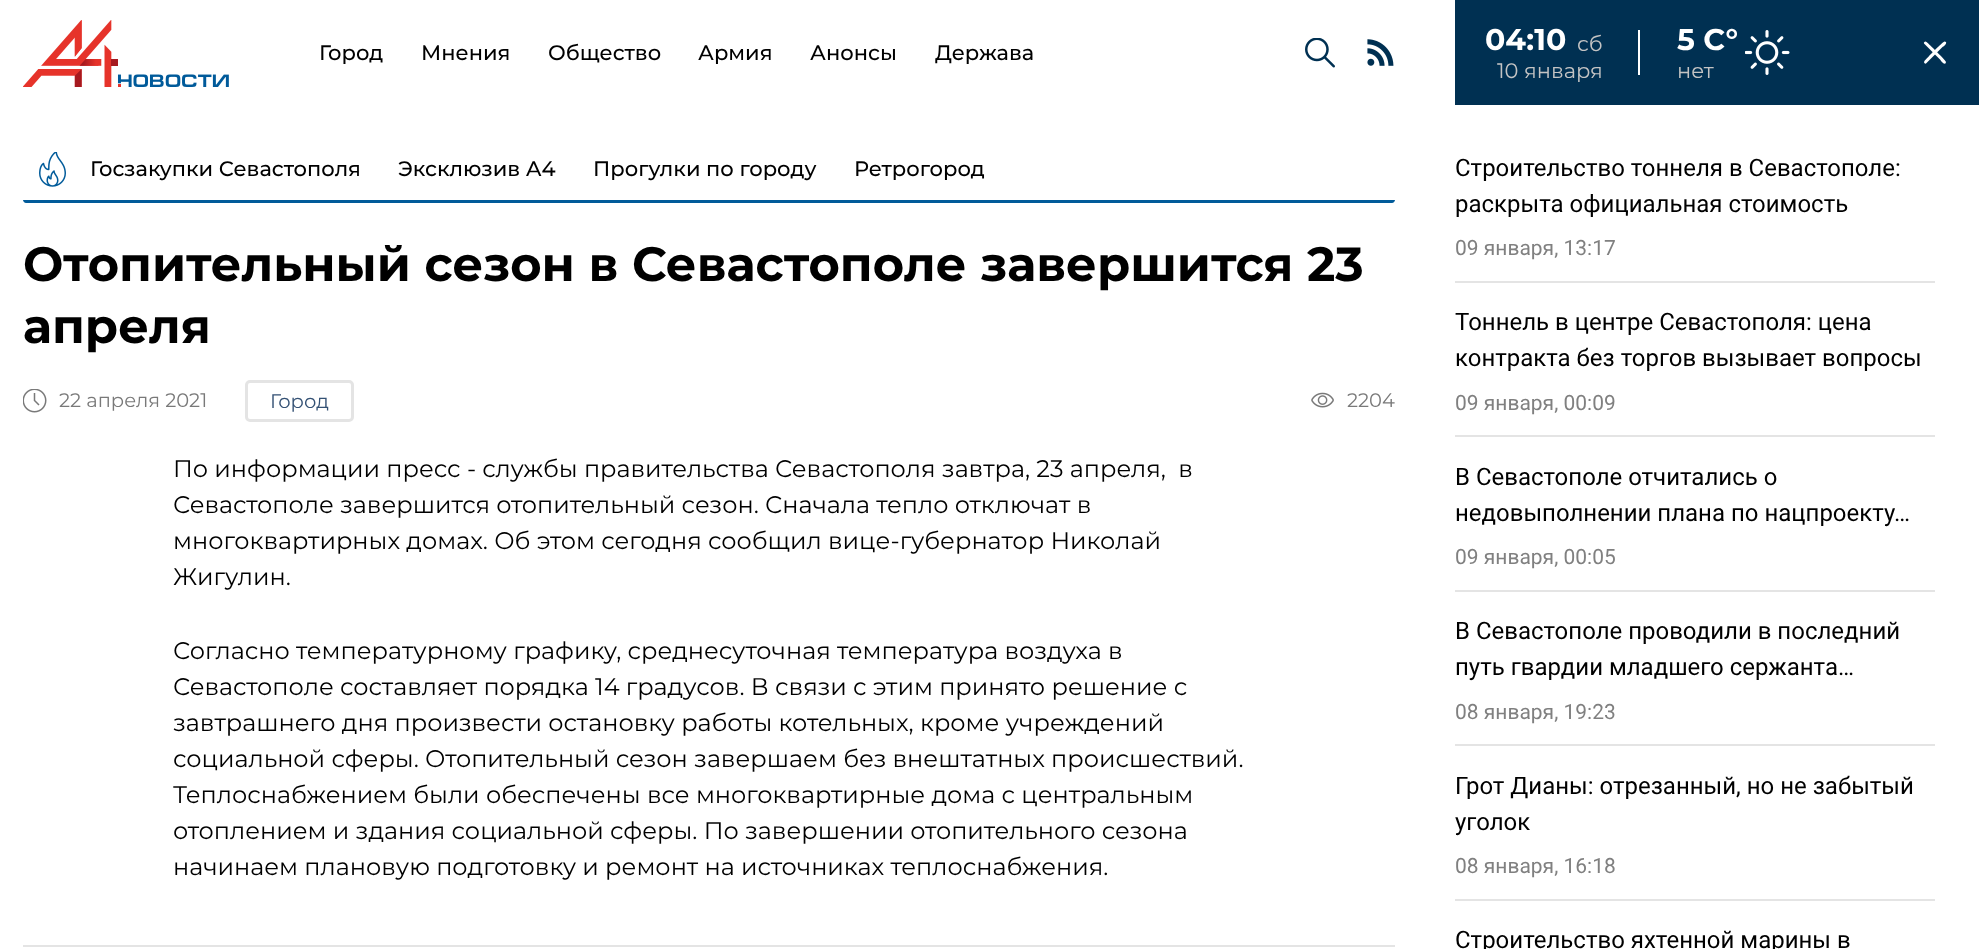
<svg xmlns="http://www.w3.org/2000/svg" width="1979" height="949">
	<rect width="100%" height="100%" fill="#FFFFFF" />
	<image x="23" y="20" width="206" height="67" href="assets/img1.png" />
	<g font-family="Montserrat" font-size="21" font-weight="500" fill="#000000">
		<text x="319" y="60">Город</text>
		<text x="421" y="60">Мнения</text>
		<text x="548" y="60">Общество</text>
		<text x="698" y="60">Армия</text>
		<text x="810" y="60">Анонсы</text>
		<text x="935" y="60">Держава</text>
	</g>
	<image x="1305" y="38" width="30" height="30" href="assets/img2.png" />
	<image x="1367" y="39" width="27" height="27" href="assets/img3.png" />
	<rect x="1455" y="0" width="524" height="105" fill="#003052" />
	<text x="1485" y="50" font-family="Montserrat" font-size="30" font-weight="700" fill="#FFFFFF">04:10</text>
	<text x="1577" y="51" font-family="Montserrat" font-size="21" fill="#C4C4C4">сб</text>
	<rect x="1638" y="30" width="2" height="45" fill="#FFFFFF" />
	<text x="1497" y="78" font-family="Montserrat" font-size="21" fill="#C4C4C4">10 января</text>
	<image x="1745" y="30" width="45" height="45" href="assets/img4.png" />
	<text x="1677" y="50" font-family="Montserrat" font-size="30" font-weight="700" fill="#FFFFFF">5 С°</text>
	<text x="1677" y="78" font-family="Montserrat" font-size="21" fill="#C4C4C4">нет</text>
	<image x="39" y="152" width="27" height="35" href="assets/img5.png" />
	<g font-family="Montserrat" font-size="21" font-weight="500" fill="#000000">
		<text x="90" y="176">Госзакупки Севастополя</text>
		<text x="398" y="176">Эксклюзив А4</text>
		<text x="593" y="176">Прогулки по городу</text>
		<text x="854" y="176">Ретрогород</text>
	</g>
	<path d="M23 200H1395C1395 201.5 1393.5 203 1392 203H26C24.5 203 23 201.5 23 200Z" fill="#015B9A" />
	<path d="M1924.5 61C1926.5 58.5 1943 41.5 1944.5 41.5L1946 42C1947 44 1943 47 1942.5 47L1926 63.5C1925 64 1924 63 1924 62Z" fill="#FFFFFF" />
	<path d="M1926.5 42C1929 44 1946 60.5 1946 62L1945.5 63.5C1943.5 64.5 1940.5 60.5 1940.5 60L1924 43.5C1923.5 42.5 1924.5 41.5 1925.5 41.5Z" fill="#FFFFFF" />
	<rect x="1455" y="281" width="480" height="2" fill="#E4E4E4" />
	<g font-family="Roboto" font-size="24" fill="#000000">
		<text x="1455" y="176">Строительство тоннеля в Севастополе:</text>
		<text x="1455" y="212">раскрыта официальная стоимость</text>
	</g>
	<text x="1455" y="255" font-family="Roboto" font-size="21" fill="#808080">09 января, 13:17</text>
	<rect x="1455" y="435" width="480" height="2" fill="#E4E4E4" />
	<g font-family="Roboto" font-size="24" fill="#000000">
		<text x="1455" y="330">Тоннель в центре Севастополя: цена</text>
		<text x="1455" y="366">контракта без торгов вызывает вопросы</text>
	</g>
	<text x="1455" y="410" font-family="Roboto" font-size="21" fill="#808080">09 января, 00:09</text>
	<rect x="1455" y="590" width="480" height="2" fill="#E4E4E4" />
	<g font-family="Roboto" font-size="24" fill="#000000">
		<text x="1455" y="485">В Севастополе отчитались о</text>
		<text x="1455" y="521">недовыполнении плана по нацпроекту…</text>
	</g>
	<text x="1455" y="564" font-family="Roboto" font-size="21" fill="#808080">09 января, 00:05</text>
	<rect x="1455" y="744" width="480" height="2" fill="#E4E4E4" />
	<g font-family="Roboto" font-size="24" fill="#000000">
		<text x="1455" y="639">В Севастополе проводили в последний</text>
		<text x="1455" y="675">путь гвардии младшего сержанта…</text>
	</g>
	<text x="1455" y="719" font-family="Roboto" font-size="21" fill="#808080">08 января, 19:23</text>
	<rect x="1455" y="899" width="480" height="2" fill="#E4E4E4" />
	<g font-family="Roboto" font-size="24" fill="#000000">
		<text x="1455" y="794">Грот Дианы: отрезанный, но не забытый</text>
		<text x="1455" y="830">уголок</text>
	</g>
	<text x="1455" y="873" font-family="Roboto" font-size="21" fill="#808080">08 января, 16:18</text>
	<text x="1455" y="948" font-family="Roboto" font-size="24" fill="#000000">Строительство яхтенной марины в</text>
	<g font-family="Montserrat" font-size="48" font-weight="700" fill="#000000">
		<text x="23" y="281">Отопительный сезон в Севастополе завершится 23</text>
		<text x="23" y="343">апреля</text>
	</g>
	<image x="23" y="389" width="24" height="24" href="assets/img6.png" />
	<text x="59" y="407" font-family="Montserrat" font-size="19.5" fill="#797979">22 апреля 2021</text>
	<rect x="246.5" y="381.5" width="106" height="39" rx="3.5" fill="none" stroke="#E4E4E4" stroke-width="3" />
	<text x="270" y="408" font-family="Montserrat" font-size="19.5" fill="#345174">Город</text>
	<image x="1311" y="392" width="23" height="16" href="assets/img7.png" />
	<text x="1347" y="407" font-family="Montserrat" font-size="19.5" fill="#797979">2204</text>
	<g font-family="Montserrat" font-size="24" fill="#000000">
		<text x="173" y="477" xml:space="preserve">По информации пресс - службы правительства Севастополя завтра, 23 апреля,  в</text>
		<text x="173" y="513">Севастополе завершится отопительный сезон. Сначала тепло отключат в</text>
		<text x="173" y="549">многоквартирных домах. Об этом сегодня сообщил вице-губернатор Николай</text>
		<text x="173" y="585">Жигулин.</text>
		<text x="173" y="659">Согласно температурному графику, среднесуточная температура воздуха в</text>
		<text x="173" y="695">Севастополе составляет порядка 14 градусов. В связи с этим принято решение с</text>
		<text x="173" y="731">завтрашнего дня произвести остановку работы котельных, кроме учреждений</text>
		<text x="173" y="767">социальной сферы. Отопительный сезон завершаем без внештатных происшествий.</text>
		<text x="173" y="803">Теплоснабжением были обеспечены все многоквартирные дома с центральным</text>
		<text x="173" y="839">отоплением и здания социальной сферы. По завершении отопительного сезона</text>
		<text x="173" y="875">начинаем плановую подготовку и ремонт на источниках теплоснабжения.</text>
	</g>
	<rect x="23" y="945" width="1372" height="2" fill="#E4E4E4" />
</svg>
